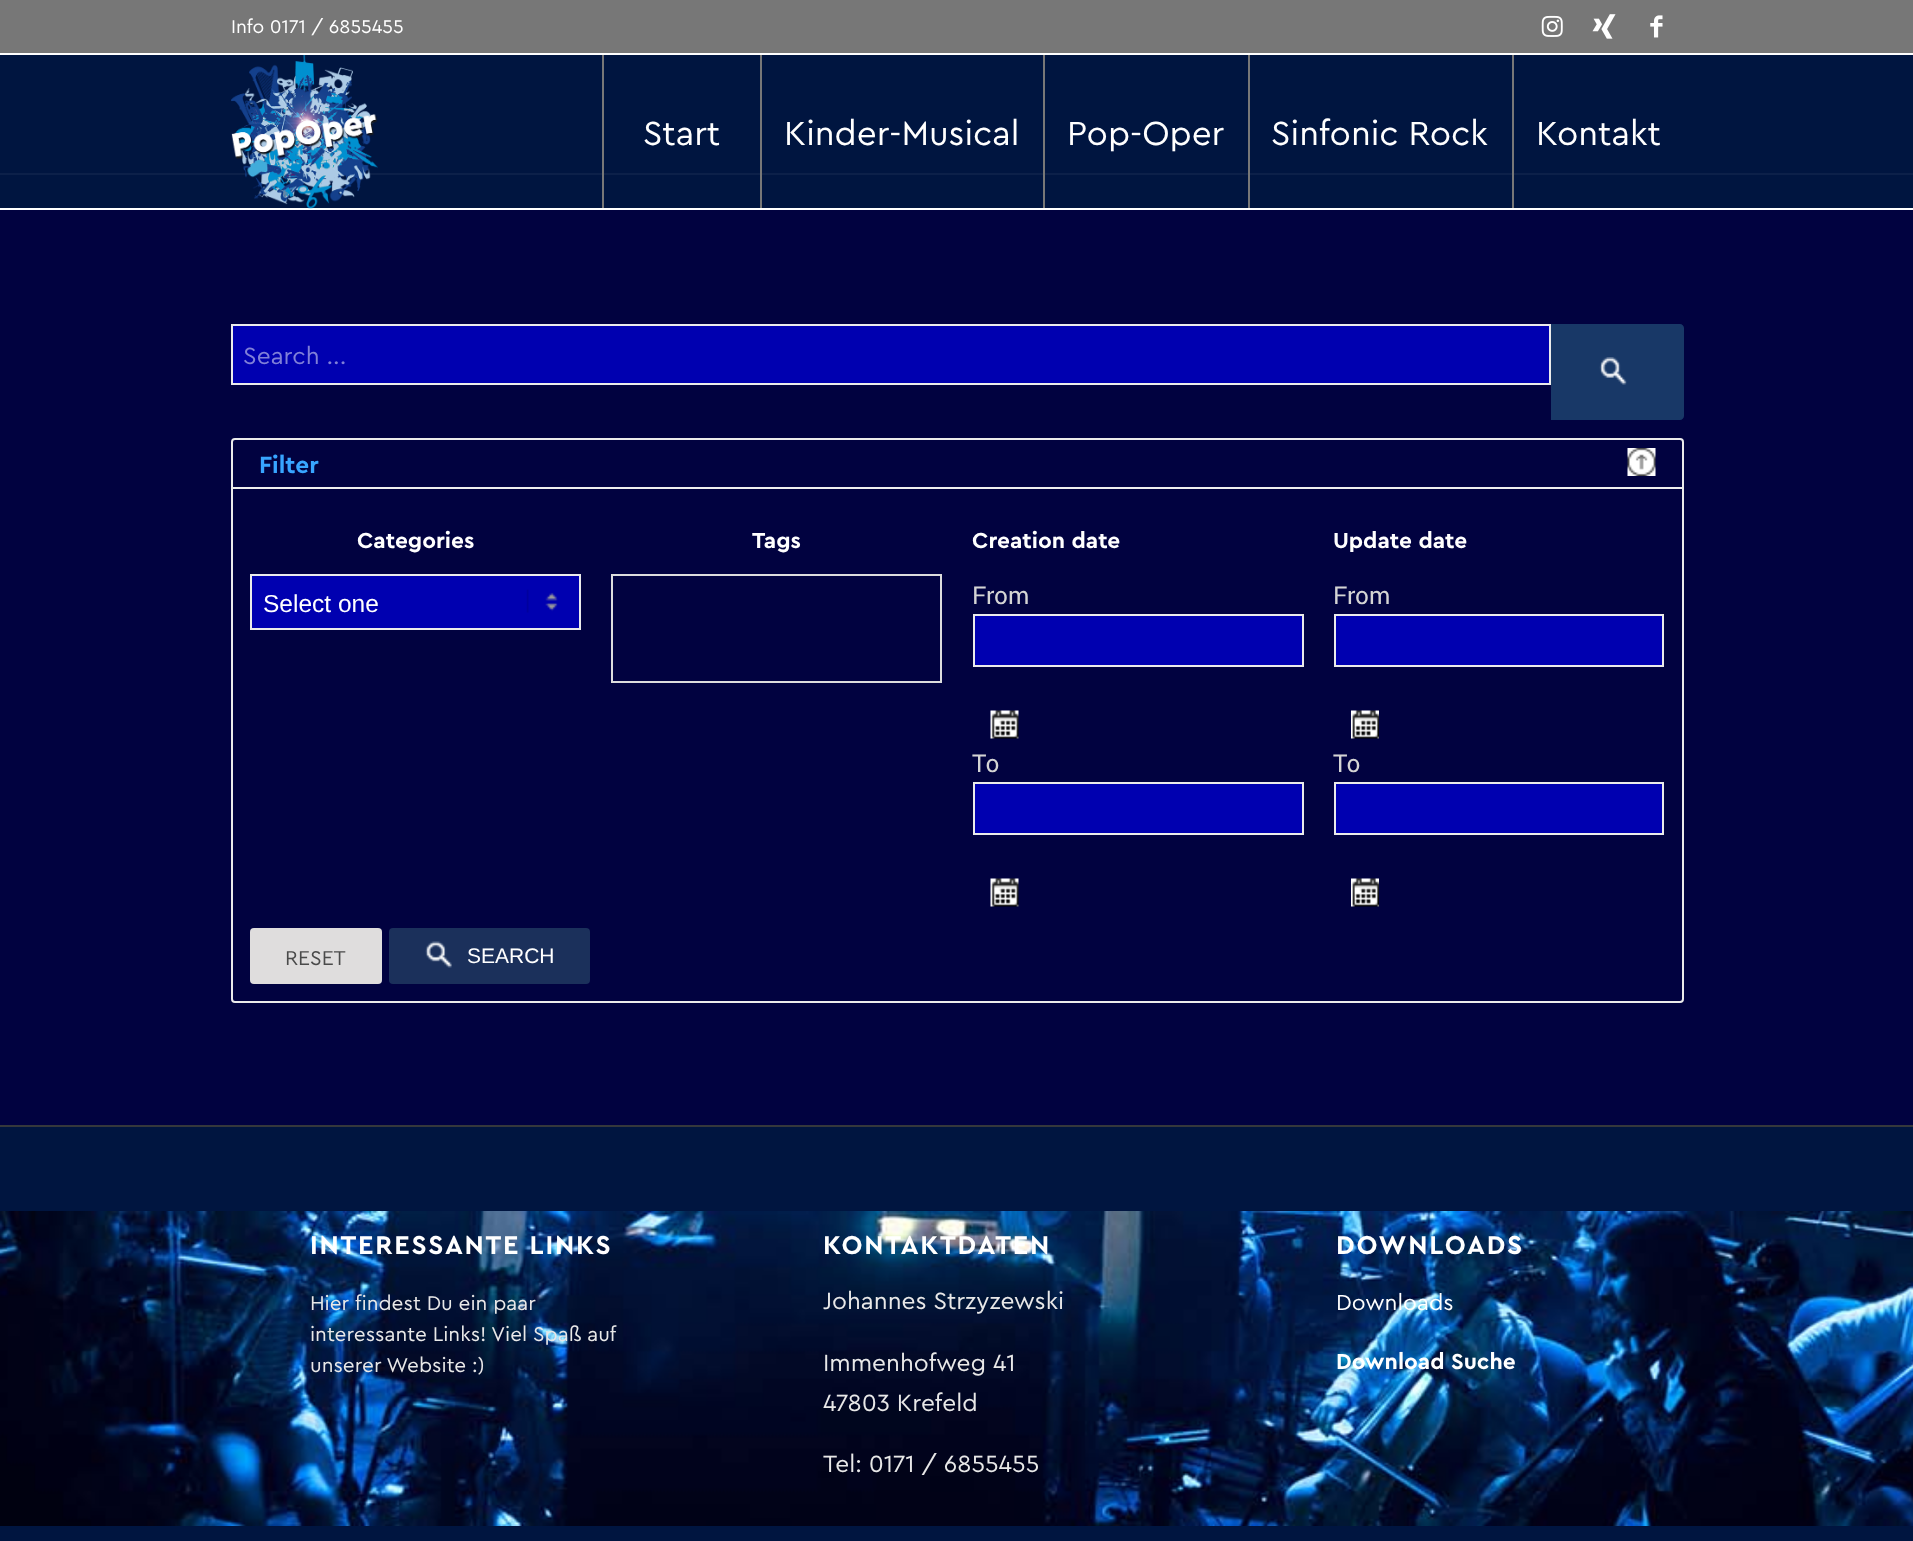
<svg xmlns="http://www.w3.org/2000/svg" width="1913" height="1541">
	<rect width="100%" height="100%" fill="#001540" />
	<rect x="0" y="0" width="1913" height="53" fill="#777777" />
	<rect x="0" y="173" width="1913" height="2" fill="#0C2049" />
	<rect x="602" y="54" width="2" height="154" fill="#777777" />
	<rect x="760" y="54" width="2" height="154" fill="#777777" />
	<rect x="1043" y="54" width="2" height="154" fill="#777777" />
	<rect x="1248" y="54" width="2" height="154" fill="#777777" />
	<rect x="1512" y="54" width="2" height="154" fill="#777777" />
	<rect x="0" y="53" width="1913" height="2" fill="#FFFFFF" />
	<text x="231" y="33" font-family="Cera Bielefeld" font-size="19.25" fill="#FFFFFF">Info 0171 / 6855455</text>
	<image x="1541" y="15" width="22" height="22" href="assets/img1.png" />
	<image x="1592" y="14" width="24" height="25" href="assets/img2.png" />
	<image x="1650" y="15" width="13" height="23" href="assets/img3.png" />
	<rect x="0" y="208" width="1913" height="2" fill="#FFFFFF" />
	<image x="231" y="55" width="147" height="154" href="assets/img4.png" />
	<g font-family="Cera Bielefeld" font-size="35" fill="#FFFFFF">
		<text x="643" y="145">Start</text>
		<text x="784" y="145">Kinder-Musical</text>
		<text x="1067" y="145">Pop-Oper</text>
		<text x="1271" y="145">Sinfonic Rock</text>
		<text x="1536" y="145">Kontakt</text>
	</g>
	<rect x="0" y="210" width="1913" height="915" fill="#010240" />
	<rect x="232" y="325" width="1318" height="59" fill="#0000B0" stroke="#EBEBEB" stroke-width="2" />
	<text x="243" y="364" font-family="Cera Bielefeld" font-size="24.5" fill="#8080D8">Search ...</text>
	<path d="M1551 324H1680C1682 324 1684 326 1684 328V416C1684 418 1682 420 1680 420H1551Z" fill="#183867" />
	<image x="1599" y="357" width="28" height="28" href="assets/img5.png" />
	<rect x="232" y="439" width="1451" height="563" rx="3" fill="none" stroke="#EBEBEB" stroke-width="2" />
	<rect x="233" y="487" width="1449" height="2" fill="#EEEEEE" />
	<text x="259" y="473" font-family="Cera Bielefeld" font-size="24.5" font-weight="700" fill="#38A5FF">Filter</text>
	<image x="1627" y="448" width="29" height="28" href="assets/img6.png" />
	<text x="357" y="548" font-family="Cera Bielefeld" font-size="22.75" font-weight="700" fill="#FFFFFF">Categories</text>
	<rect x="252" y="576" width="327" height="52" fill="#0000B0" />
	<image x="526" y="589" width="32" height="24" href="assets/img7.png" />
	<rect x="251" y="575" width="329" height="54" fill="none" stroke="#EBEBEB" stroke-width="2" />
	<text x="263" y="612" font-family="Liberation Sans" font-size="24.5" fill="#FFFFFF">Select one</text>
	<text x="752" y="548" font-family="Cera Bielefeld" font-size="22.75" font-weight="700" fill="#FFFFFF">Tags</text>
	<rect x="612" y="575" width="329" height="107" fill="none" stroke="#DDDDDD" stroke-width="2" />
	<text x="972" y="548" font-family="Cera Bielefeld" font-size="22.75" font-weight="700" fill="#FFFFFF">Creation date</text>
	<text x="972" y="604" font-family="roboto" font-size="24.5" fill="#D4D4D4">From</text>
	<rect x="974" y="615" width="329" height="51" fill="#0000B0" stroke="#EBEBEB" stroke-width="2" />
	<image x="990" y="710" width="29" height="29" href="assets/img8.png" />
	<text x="972" y="772" font-family="roboto" font-size="24.5" fill="#D4D4D4">To</text>
	<rect x="974" y="783" width="329" height="51" fill="#0000B0" stroke="#EBEBEB" stroke-width="2" />
	<image x="990" y="878" width="29" height="29" href="assets/img8.png" />
	<text x="1333" y="548" font-family="Cera Bielefeld" font-size="22.75" font-weight="700" fill="#FFFFFF">Update date</text>
	<text x="1333" y="604" font-family="roboto" font-size="24.5" fill="#D4D4D4">From</text>
	<rect x="1335" y="615" width="328" height="51" fill="#0000B0" stroke="#EBEBEB" stroke-width="2" />
	<image x="1351" y="710" width="28" height="29" href="assets/img9.png" />
	<text x="1333" y="772" font-family="roboto" font-size="24.5" fill="#D4D4D4">To</text>
	<rect x="1335" y="783" width="328" height="51" fill="#0000B0" stroke="#EBEBEB" stroke-width="2" />
	<image x="1351" y="878" width="28" height="29" href="assets/img9.png" />
	<rect x="250" y="928" width="132" height="56" rx="4" fill="#DFDDDD" />
	<text x="285" y="965" font-family="Cera Bielefeld" font-size="21" fill="#4A4A4A">RESET</text>
	<rect x="389" y="928" width="201" height="56" rx="4" fill="#1B305B" />
	<image x="425" y="941" width="27" height="27" href="assets/img10.png" />
	<text x="467" y="963" font-family="Liberation Sans" font-size="21" fill="#FFFFFF">SEARCH</text>
	<image x="0" y="1211" width="1913" height="315" href="assets/img11.png" />
	<rect x="0" y="1125" width="1913" height="2" fill="#35383C" />
	<text x="310" y="1254" font-family="Cera Bielefeld" font-size="27" font-weight="700" letter-spacing="1.75" fill="#FFFFFF">INTERESSANTE LINKS</text>
	<g font-family="Cera Bielefeld" font-size="20.8" fill="#E8E8E8">
		<text x="310" y="1310">Hier findest Du ein paar</text>
		<text x="310" y="1341">interessante Links! Viel Spaß auf</text>
		<text x="310" y="1372">unserer Website :)</text>
	</g>
	<text x="823" y="1254" font-family="Cera Bielefeld" font-size="27" font-weight="700" letter-spacing="1.75" fill="#FFFFFF">KONTAKTDATEN</text>
	<g font-family="Cera Bielefeld" font-size="24.5" fill="#E8E8E8">
		<text x="823" y="1309">Johannes Strzyzewski</text>
		<text x="823" y="1371">Immenhofweg 41</text>
		<text x="823" y="1411">47803 Krefeld</text>
		<text x="823" y="1472">Tel: 0171 / 6855455</text>
	</g>
	<text x="1336" y="1254" font-family="Cera Bielefeld" font-size="27" font-weight="700" letter-spacing="1.75" fill="#FFFFFF">DOWNLOADS</text>
	<text x="1336" y="1310" font-family="Cera Bielefeld" font-size="22.75" fill="#FFFFFF">Downloads</text>
	<text x="1336" y="1369" font-family="Cera Bielefeld" font-size="22.75" font-weight="700" fill="#FFFFFF">Download Suche</text>
</svg>
